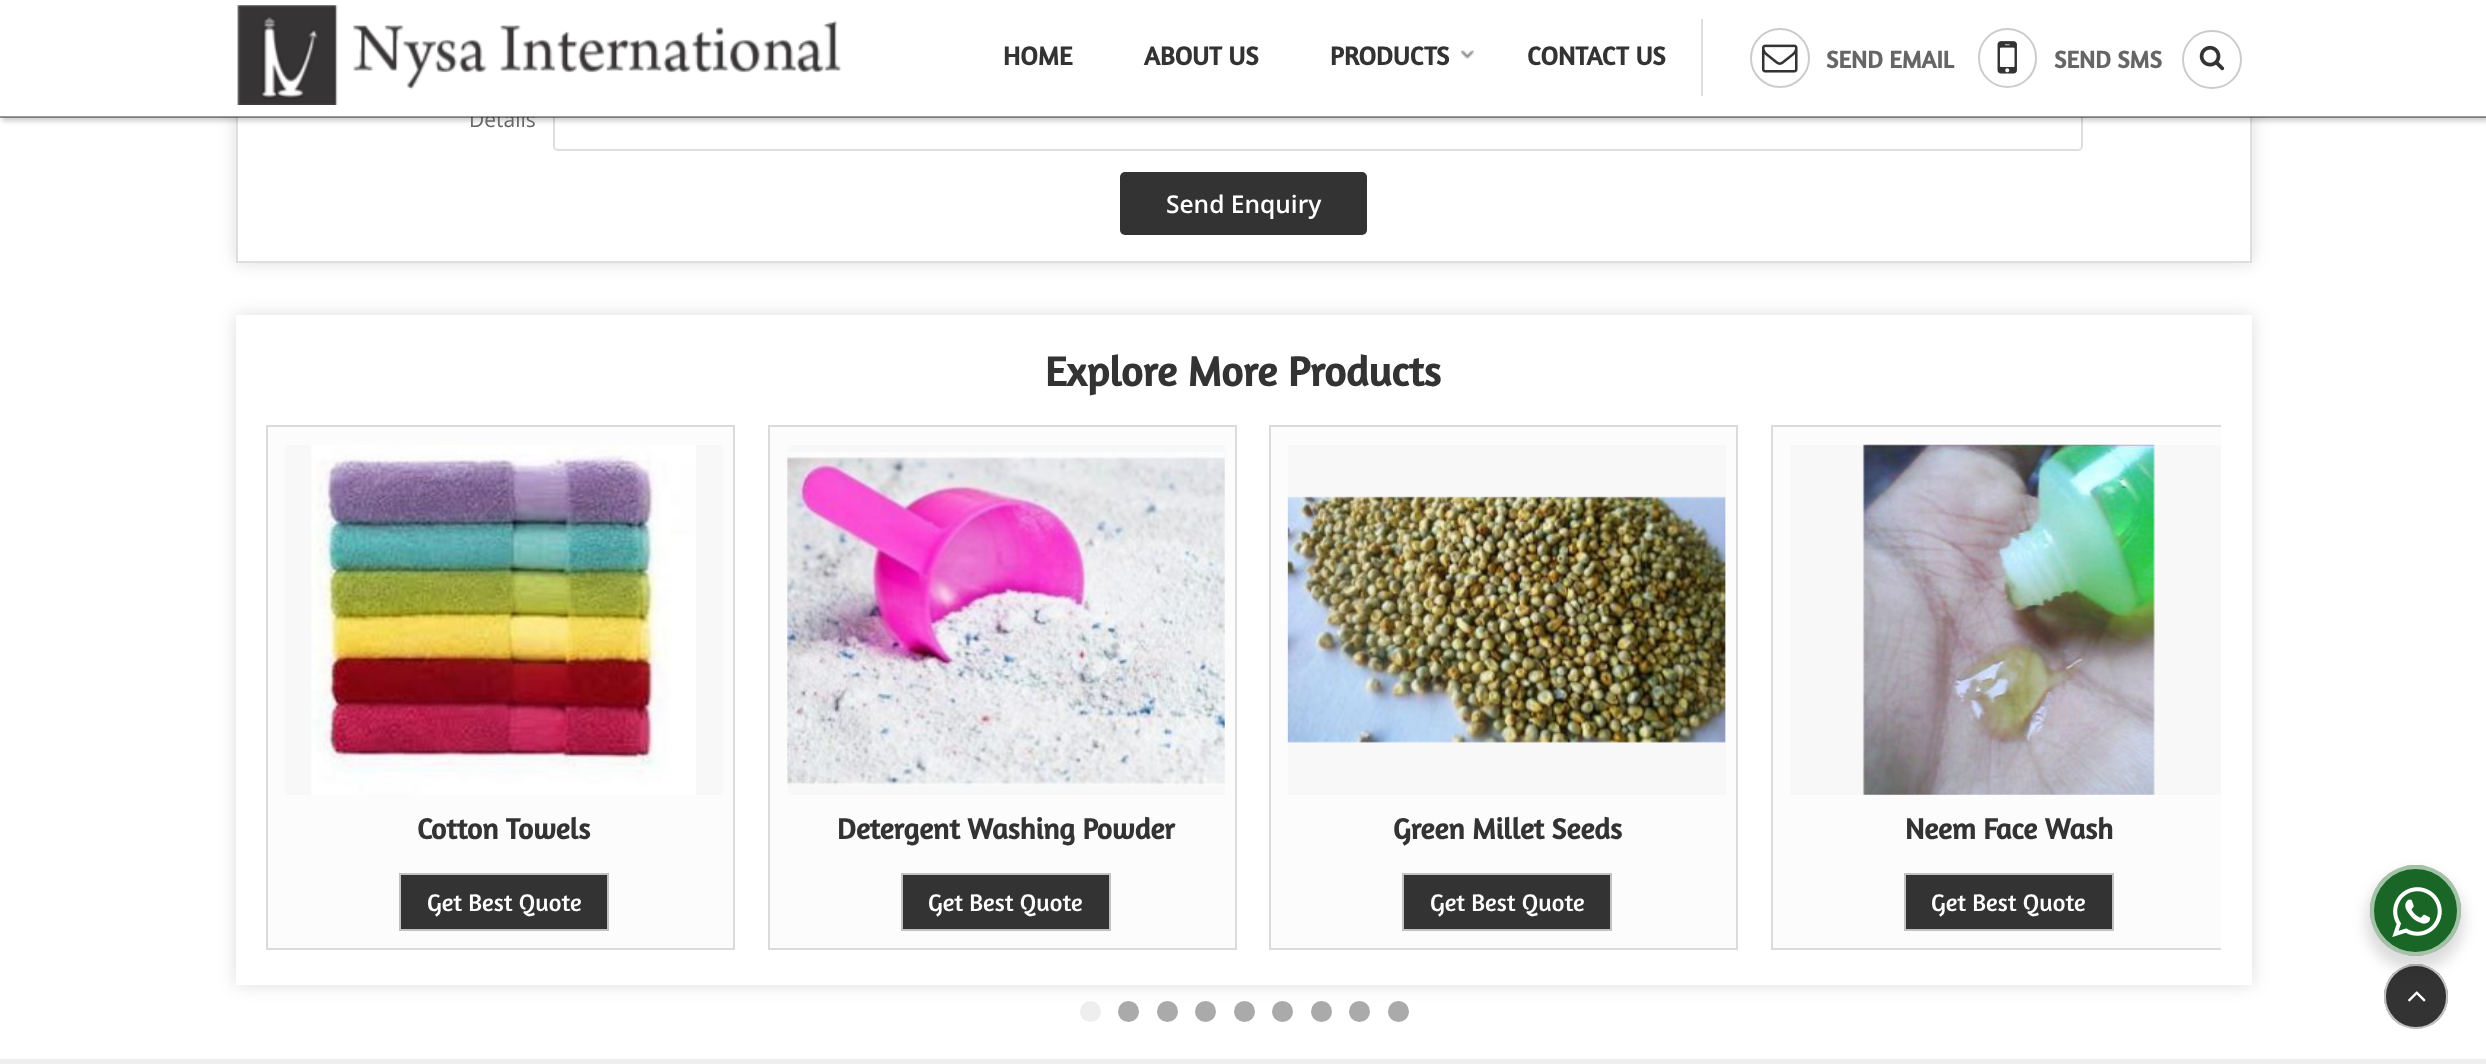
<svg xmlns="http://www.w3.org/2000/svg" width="2486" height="1064">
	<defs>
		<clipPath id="clip1"><path d="M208 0H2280V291H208ZM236-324H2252V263H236Z" clip-rule="evenodd" /></clipPath>
		<clipPath id="clip2"><path d="M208 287H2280V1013H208ZM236 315H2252V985H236Z" clip-rule="evenodd" /></clipPath>
		<clipPath id="clip3"><rect x="266" y="425" width="1955" height="525" /></clipPath>
	</defs>
	<rect width="100%" height="100%" fill="#FFFFFF" />
	<g clip-path="url(#clip1)">
		<rect x="236" y="-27" width="2016" height="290" fill="#CCCCCC" fill-opacity="0.67" filter="blur(9px)" />
	</g>
	<rect x="237" y="-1" width="2014" height="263" fill="none" stroke="#000000" stroke-opacity="0.13" stroke-width="2" />
	<rect x="554" y="68" width="1528" height="82" rx="4" fill="none" stroke="#DEDEDE" stroke-width="2" />
	<rect x="2" y="4" width="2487" height="117" fill="#000000" fill-opacity="0.2" filter="blur(2.5px)" />
	<text x="469" y="127" font-family="Open Sans" font-size="21" fill="#666666">Details</text>
	<rect x="0" y="0" width="2486" height="117" fill="#FFFFFF" />
	<rect x="0" y="116" width="2486" height="2" fill="#000000" fill-opacity="0.4" />
	<image x="237" y="5" width="605" height="100" href="assets/img1.png" />
	<g font-family="Amaranth" font-size="26.25" font-weight="700" fill="#333333">
		<text x="1003" y="65">HOME</text>
		<text x="1144" y="65">ABOUT US</text>
		<text x="1330" y="65">PRODUCTS</text>
	</g>
	<image x="1460" y="50" width="14" height="9" href="assets/img2.png" />
	<text x="1527" y="65" font-family="Amaranth" font-size="26.25" font-weight="700" fill="#333333">CONTACT US</text>
	<rect x="1701" y="19" width="2" height="77" fill="#DEDEDE" />
	<circle cx="1780" cy="58" r="29" fill="none" stroke="#CCCCCC" stroke-width="2" />
	<image x="1761" y="44" width="37" height="29" href="assets/img3.png" />
	<text x="1826" y="68" font-family="Amaranth" font-size="24.5" font-weight="700" fill="#666666">SEND EMAIL</text>
	<rect x="1979" y="29" width="57" height="58" rx="28.5" fill="none" stroke="#CCCCCC" stroke-width="2" />
	<image x="1997" y="41" width="20" height="33" href="assets/img4.png" />
	<text x="2054" y="68" font-family="Amaranth" font-size="24.5" font-weight="700" fill="#666666">SEND SMS</text>
	<rect x="2183" y="31" width="58" height="57" rx="28.5" fill="none" stroke="#CCCCCC" stroke-width="2" />
	<image x="2199" y="45" width="26" height="26" href="assets/img5.png" />
	<rect x="1120" y="172" width="247" height="63" rx="5" fill="#333333" />
	<text x="1166" y="213" font-family="Open Sans" font-size="24.5" font-weight="600" fill="#FFFFFF">Send Enquiry</text>
	<g clip-path="url(#clip2)">
		<rect x="236" y="315" width="2016" height="670" fill="#CCCCCC" fill-opacity="0.67" filter="blur(9px)" />
	</g>
	<text x="1045" y="386" font-family="Amaranth" font-size="42" font-weight="700" fill="#333333">Explore More Products</text>
	<rect x="267" y="426" width="467" height="523" fill="#FCFCFC" stroke="#DBDBDB" stroke-width="2" />
	<rect x="285" y="445" width="438" height="350" fill="#F8F8F8" />
	<image x="311" y="445" width="385" height="350" href="assets/img6.png" />
	<text x="417" y="839" font-family="Amaranth" font-size="29.4" font-weight="700" fill="#333333">Cotton Towels</text>
	<rect x="400" y="874" width="208" height="56" fill="#333333" stroke="#C2C2C2" stroke-width="2" />
	<text x="427" y="911" font-family="Amaranth" font-size="24.5" fill="#FFFFFF">Get Best Quote</text>
	<rect x="769" y="426" width="467" height="523" fill="#FCFCFC" stroke="#DBDBDB" stroke-width="2" />
	<rect x="788" y="445" width="437" height="350" fill="#F8F8F8" />
	<image x="787" y="452" width="438" height="334" href="assets/img7.png" />
	<text x="837" y="839" font-family="Amaranth" font-size="29.4" font-weight="700" fill="#333333">Detergent Washing Powder</text>
	<rect x="902" y="874" width="208" height="56" fill="#333333" stroke="#C2C2C2" stroke-width="2" />
	<text x="928" y="911" font-family="Amaranth" font-size="24.5" fill="#FFFFFF">Get Best Quote</text>
	<rect x="1270" y="426" width="467" height="523" fill="#FCFCFC" stroke="#DBDBDB" stroke-width="2" />
	<rect x="1288" y="445" width="438" height="350" fill="#F8F8F8" />
	<image x="1287" y="496" width="439" height="247" href="assets/img8.png" />
	<text x="1393" y="839" font-family="Amaranth" font-size="29.4" font-weight="700" fill="#333333">Green Millet Seeds</text>
	<rect x="1403" y="874" width="208" height="56" fill="#333333" stroke="#C2C2C2" stroke-width="2" />
	<text x="1430" y="911" font-family="Amaranth" font-size="24.5" fill="#FFFFFF">Get Best Quote</text>
	<rect x="1773" y="427" width="448" height="521" fill="#FCFCFC" />
	<g clip-path="url(#clip3)">
		<rect x="1772" y="426" width="467" height="523" fill="none" stroke="#DBDBDB" stroke-width="2" />
	</g>
	<rect x="1790" y="445" width="431" height="350" fill="#F8F8F8" />
	<image x="1862" y="444" width="293" height="351" href="assets/img9.png" />
	<text x="1905" y="839" font-family="Amaranth" font-size="29.4" font-weight="700" fill="#333333">Neem Face Wash</text>
	<rect x="1905" y="874" width="208" height="56" fill="#333333" stroke="#C2C2C2" stroke-width="2" />
	<text x="1931" y="911" font-family="Amaranth" font-size="24.5" fill="#FFFFFF">Get Best Quote</text>
	<circle cx="1090.5" cy="1011.5" r="10.5" fill="#EEEEEE" />
	<circle cx="1128.5" cy="1011.5" r="10.5" fill="#AAAAAA" />
	<circle cx="1167.5" cy="1011.5" r="10.5" fill="#AAAAAA" />
	<circle cx="1205.5" cy="1011.5" r="10.5" fill="#AAAAAA" />
	<circle cx="1244.5" cy="1011.5" r="10.5" fill="#AAAAAA" />
	<circle cx="1282.5" cy="1011.5" r="10.5" fill="#AAAAAA" />
	<circle cx="1321.5" cy="1011.5" r="10.5" fill="#AAAAAA" />
	<circle cx="1359.5" cy="1011.5" r="10.5" fill="#AAAAAA" />
	<circle cx="1398.5" cy="1011.5" r="10.5" fill="#AAAAAA" />
	<rect x="0" y="1059" width="2486" height="5" fill="#EEEEEE" />
	<rect x="2384" y="964" width="64" height="65" rx="32" fill="#333333" />
	<rect x="2385" y="965" width="62" height="63" rx="31" fill="none" stroke="#FFFFFF" stroke-opacity="0.7" stroke-width="2" />
	<image x="2408" y="991" width="18" height="11" href="assets/img11.png" />
	<rect x="2366" y="872" width="98" height="98" rx="49" fill="#000000" fill-opacity="0.14" filter="blur(7px)" />
	<circle cx="2415.5" cy="910.5" r="45.5" fill="#196626" />
	<circle cx="2415.5" cy="910.5" r="43.5" fill="none" stroke="#FFFFFF" stroke-opacity="0.6" stroke-width="4" />
	<image x="2392" y="887" width="50" height="50" href="assets/img10.png" />
</svg>
